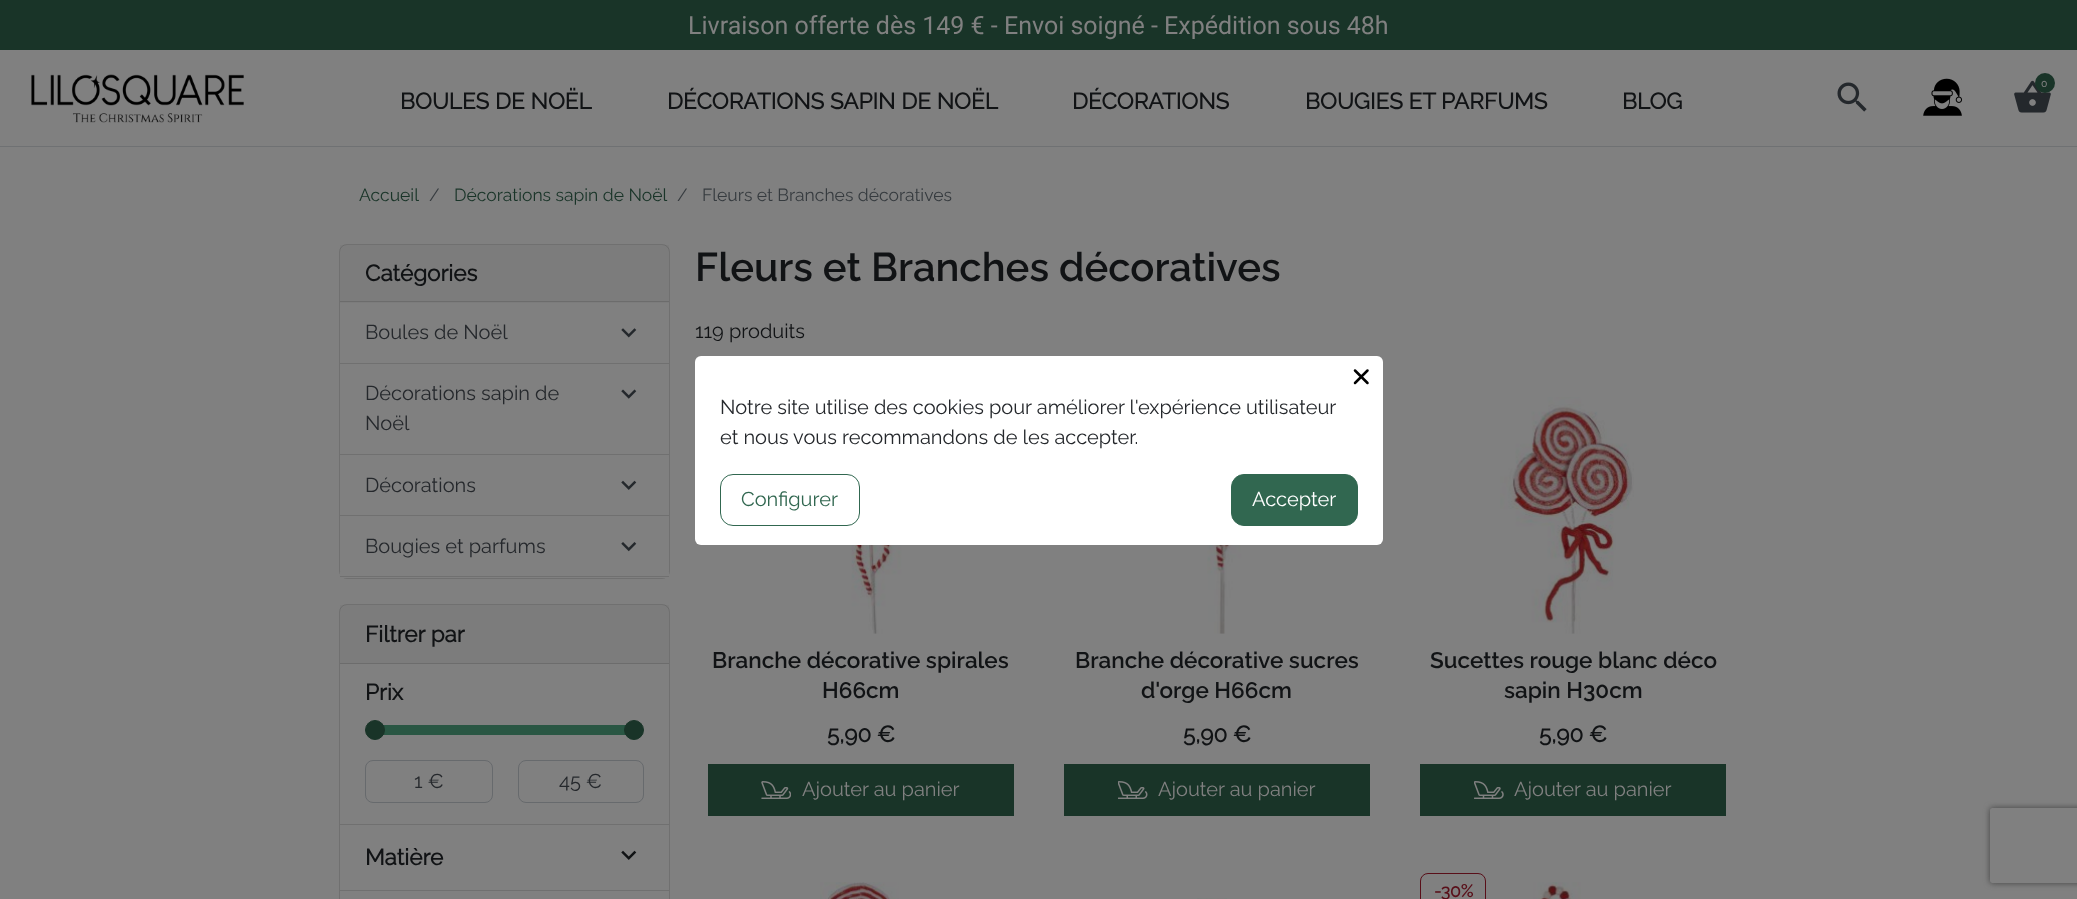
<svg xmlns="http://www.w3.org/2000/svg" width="2077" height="899">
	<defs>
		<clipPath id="clip1"><path d="M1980 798H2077V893H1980ZM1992.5 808H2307.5C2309 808 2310 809 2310 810.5V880.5C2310 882 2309 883 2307.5 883H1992.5C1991 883 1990 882 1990 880.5V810.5C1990 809 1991 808 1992.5 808Z" clip-rule="evenodd" /></clipPath>
	</defs>
	<rect width="100%" height="100%" fill="#808080" />
	<rect x="0" y="146" width="2077" height="1" fill="#6F7173" />
	<rect x="0" y="0" width="2077" height="50" fill="#193428" />
	<text x="688" y="34" font-family="Roboto" font-size="25" fill="#808080">Livraison offerte dès 149 € - Envoi soigné - Expédition sous 48h</text>
	<image x="31" y="74" width="213" height="49" href="assets/img1.png" />
	<g font-family="Raleway" font-size="22.5" font-weight="700" fill="#111315">
		<text x="400" y="109">BOULES DE NOËL</text>
		<text x="667" y="109">DÉCORATIONS SAPIN DE NOËL</text>
		<text x="1072" y="109">DÉCORATIONS</text>
		<text x="1305" y="109">BOUGIES ET PARFUMS</text>
		<text x="1622" y="109">BLOG</text>
	</g>
	<image x="1837" y="82" width="30" height="30" href="assets/img2.png" />
	<image x="1923" y="78" width="39" height="38" href="assets/img3.png" />
	<image x="2014" y="80" width="37" height="33" href="assets/img4.png" />
	<circle cx="2045" cy="83" r="10" fill="#193428" />
	<text x="2041" y="87" font-family="Raleway" font-size="10" font-weight="700" fill="#808080">0</text>
	<text x="359" y="201" font-family="Raleway" font-size="17.5" fill="#193428">Accueil</text>
	<text x="429" y="201" font-family="Raleway" font-size="17.5" fill="#363B3F">/</text>
	<text x="454" y="201" font-family="Raleway" font-size="17.5" fill="#193428">Décorations sapin de Noël</text>
	<g font-family="Raleway" font-size="17.5" fill="#363B3F">
		<text x="677" y="201">/</text>
		<text x="702" y="201">Fleurs et Branches décoratives</text>
	</g>
	<rect x="339.5" y="244.5" width="330" height="334" rx="7.5" fill="none" stroke="#707070" />
	<rect x="340" y="245" width="329" height="58" fill="#000000" fill-opacity="0.03" />
	<rect x="340" y="301" width="329" height="1" fill="#6C6C6C" />
	<text x="365" y="281" font-family="Raleway" font-size="22.5" font-weight="700" fill="#111315">Catégories</text>
	<rect x="340" y="363" width="329" height="1" fill="#707070" />
	<text x="365" y="339" font-family="Raleway" font-size="20" fill="#25282C">Boules de Noël</text>
	<image x="621" y="328" width="16" height="10" href="assets/img5.png" />
	<rect x="340" y="454" width="329" height="1" fill="#707070" />
	<g font-family="Raleway" font-size="20" fill="#25282C">
		<text x="365" y="400">Décorations sapin de</text>
		<text x="365" y="430">Noël</text>
	</g>
	<image x="621" y="389" width="16" height="10" href="assets/img6.png" />
	<rect x="340" y="515" width="329" height="1" fill="#707070" />
	<text x="365" y="492" font-family="Raleway" font-size="20" fill="#25282C">Décorations</text>
	<image x="621" y="480" width="16" height="10" href="assets/img7.png" />
	<rect x="340" y="572" width="329" height="6" fill="#808080" />
	<rect x="340" y="576" width="329" height="1" fill="#707070" />
	<text x="365" y="553" font-family="Raleway" font-size="20" fill="#25282C">Bougies et parfums</text>
	<image x="621" y="542" width="16" height="10" href="assets/img8.png" />
	<rect x="339.5" y="604.5" width="330" height="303" rx="7.5" fill="none" stroke="#707070" />
	<rect x="340" y="605" width="329" height="58" fill="#000000" fill-opacity="0.03" />
	<rect x="340" y="663" width="329" height="1" fill="#6C6C6C" />
	<text x="365" y="642" font-family="Raleway" font-size="22.5" font-weight="700" fill="#111315">Filtrer par</text>
	<rect x="340" y="824" width="329" height="1" fill="#707070" />
	<text x="365" y="700" font-family="Raleway" font-size="22.5" font-weight="700" fill="#111315">Prix</text>
	<rect x="383" y="725" width="243" height="10" fill="#295643" />
	<circle cx="375" cy="730" r="9.5" fill="#193428" stroke="#193428" />
	<circle cx="634" cy="730" r="9.5" fill="#193428" stroke="#193428" />
	<rect x="365.5" y="760.5" width="127" height="42" rx="7.5" fill="none" stroke="#676A6D" />
	<text x="414" y="788" font-family="Raleway" font-size="20" fill="#25282C">1 €</text>
	<rect x="518.5" y="760.5" width="125" height="42" rx="7.5" fill="none" stroke="#676A6D" />
	<text x="559" y="788" font-family="Raleway" font-size="20" fill="#25282C">45 €</text>
	<rect x="340" y="890" width="329" height="1" fill="#707070" />
	<text x="365" y="865" font-family="Raleway" font-size="22.5" font-weight="700" fill="#111315">Matière</text>
	<image x="621" y="850" width="16" height="10" href="assets/img9.png" />
	<text x="695" y="281" font-family="Raleway" font-size="40" font-weight="600" fill="#111315">Fleurs et Branches décoratives</text>
	<text x="695" y="338" font-family="Raleway" font-size="20" fill="#111315">119 produits</text>
	<image x="788" y="545" width="120" height="89" href="assets/img10.png" />
	<g font-family="Raleway" font-size="22.5" font-weight="600" fill="#111315">
		<text x="712" y="668">Branche décorative spirales</text>
		<text x="822" y="698">H66cm</text>
	</g>
	<text x="827" y="742" font-family="Raleway" font-size="22.5" font-weight="700" fill="#111315">5,90 €</text>
	<rect x="708" y="764" width="306" height="52" fill="#193428" />
	<image x="761" y="781" width="30" height="18" href="assets/img11.png" />
	<text x="802" y="796" font-family="Raleway" font-size="20" fill="#808080">Ajouter au panier</text>
	<image x="1160" y="545" width="129" height="89" href="assets/img12.png" />
	<g font-family="Raleway" font-size="22.5" font-weight="600" fill="#111315">
		<text x="1075" y="668">Branche décorative sucres</text>
		<text x="1141" y="698">d'orge H66cm</text>
	</g>
	<text x="1183" y="742" font-family="Raleway" font-size="22.5" font-weight="700" fill="#111315">5,90 €</text>
	<rect x="1064" y="764" width="306" height="52" fill="#193428" />
	<image x="1118" y="781" width="30" height="18" href="assets/img13.png" />
	<text x="1158" y="796" font-family="Raleway" font-size="20" fill="#808080">Ajouter au panier</text>
	<image x="1500" y="397" width="134" height="237" href="assets/img14.png" />
	<g font-family="Raleway" font-size="22.5" font-weight="600" fill="#111315">
		<text x="1430" y="668">Sucettes rouge blanc déco</text>
		<text x="1504" y="698">sapin H30cm</text>
	</g>
	<text x="1539" y="742" font-family="Raleway" font-size="22.5" font-weight="700" fill="#111315">5,90 €</text>
	<rect x="1420" y="764" width="306" height="52" fill="#193428" />
	<image x="1474" y="781" width="30" height="18" href="assets/img15.png" />
	<text x="1514" y="796" font-family="Raleway" font-size="20" fill="#808080">Ajouter au panier</text>
	<image x="820" y="882" width="79" height="17" href="assets/img16.png" />
	<image x="1197" y="898" width="30" height="1" href="assets/img17.png" />
	<rect x="1420.5" y="873.5" width="65" height="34" rx="7.5" fill="none" stroke="#590F19" />
	<text x="1434" y="897" font-family="Raleway" font-size="17.5" font-weight="700" fill="#590F19">-30%</text>
	<image x="1533" y="882" width="48" height="17" href="assets/img18.png" />
	<rect x="695" y="356" width="688" height="189" rx="6" fill="#FFFFFF" />
	<path d="M1355 370.5L1367.5 383M1367.5 370.5L1355 383" fill="none" stroke="#000000" stroke-width="2.5" stroke-linecap="round" />
	<g font-family="Raleway" font-size="20" fill="#25282C">
		<text x="720" y="414">Notre site utilise des cookies pour améliorer l'expérience utilisateur</text>
		<text x="720" y="444">et nous vous recommandons de les accepter.</text>
	</g>
	<rect x="720.5" y="474.5" width="139" height="51" rx="12.5" fill="none" stroke="#316750" />
	<text x="741" y="506" font-family="Raleway" font-size="20" fill="#316750">Configurer</text>
	<rect x="1231.5" y="474.5" width="126" height="51" rx="12.5" fill="#316750" stroke="#316750" />
	<text x="1252" y="506" font-family="Raleway" font-size="20" fill="#FFFFFF">Accepter</text>
	<g clip-path="url(#clip1)">
		<rect x="1990" y="808" width="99" height="75" rx="2.5" fill="#404040" filter="blur(3px)" />
	</g>
</svg>
